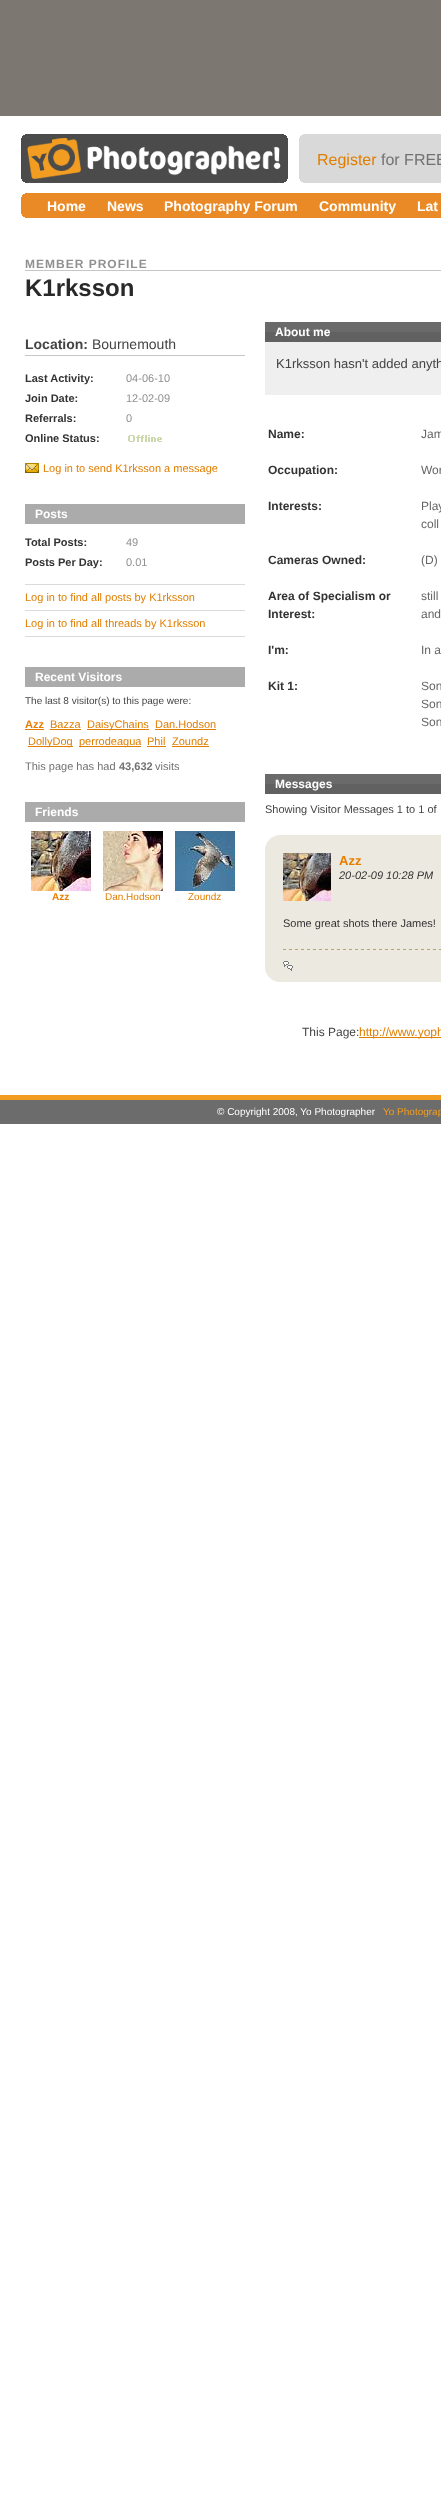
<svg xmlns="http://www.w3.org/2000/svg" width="441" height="2507">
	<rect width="100%" height="100%" fill="#FFFFFF" />
	<rect x="0" y="0" width="441" height="116" fill="#7C7771" />
	<image x="21" y="134" width="267" height="49" href="assets/img1.png" />
	<rect x="299" y="134" width="142" height="49" fill="#D9D9D9" />
	<image x="299" y="179" width="4" height="4" href="assets/img2.png" />
	<image x="299" y="134" width="4" height="4" href="assets/img3.png" />
	<text x="317" y="165" font-family="Liberation Sans" font-size="16" fill="#E07E00">Register</text>
	<text x="381" y="165" font-family="Liberation Sans" font-size="16" fill="#727272">for FREE</text>
	<rect x="21" y="193" width="420" height="25" fill="#EA8A26" />
	<image x="21" y="214" width="4" height="4" href="assets/img4.png" />
	<image x="21" y="193" width="4" height="4" href="assets/img5.png" />
	<g font-family="Liberation Sans" font-size="14" font-weight="700" fill="#FFFFFF">
		<text x="47" y="211">Home</text>
		<text x="107" y="211">News</text>
		<text x="164" y="211">Photography Forum</text>
		<text x="319" y="211">Community</text>
		<text x="417" y="211">Lat</text>
	</g>
	<rect x="25" y="270" width="416" height="1" fill="#C6C6C6" />
	<text x="25" y="268" font-family="Liberation Sans" font-size="12" font-weight="700" letter-spacing="1" fill="#909090">MEMBER PROFILE</text>
	<text x="25" y="296" font-family="Liberation Sans" font-size="24" font-weight="700" fill="#292929">K1rksson</text>
	<rect x="25" y="355" width="220" height="1" fill="#C6C6C6" />
	<text x="25" y="349" font-family="Liberation Sans" font-size="14" font-weight="700" fill="#444444">Location:</text>
	<text x="92" y="349" font-family="Liberation Sans" font-size="14" fill="#444444">Bournemouth</text>
	<text x="25" y="382" font-family="Liberation Sans" font-size="11" font-weight="700" fill="#333333">Last Activity:</text>
	<text x="126" y="382" font-family="Liberation Sans" font-size="11" fill="#909090">04-06-10</text>
	<text x="25" y="402" font-family="Liberation Sans" font-size="11" font-weight="700" fill="#333333">Join Date:</text>
	<text x="126" y="402" font-family="Liberation Sans" font-size="11" fill="#909090">12-02-09</text>
	<text x="25" y="422" font-family="Liberation Sans" font-size="11" font-weight="700" fill="#333333">Referrals:</text>
	<text x="126" y="422" font-family="Liberation Sans" font-size="11" fill="#909090">0</text>
	<text x="25" y="442" font-family="Liberation Sans" font-size="11" font-weight="700" fill="#333333">Online Status:</text>
	<image x="128" y="435" width="34" height="7" href="assets/img6.png" />
	<image x="25" y="463" width="14" height="10" href="assets/img7.png" />
	<text x="43" y="472" font-family="Liberation Sans" font-size="11" fill="#E07E00">Log in to send K1rksson a message</text>
	<rect x="25" y="504" width="220" height="20" fill="#ABABAB" />
	<text x="35" y="518" font-family="Liberation Sans" font-size="12" font-weight="700" fill="#FFFFFF">Posts</text>
	<text x="25" y="546" font-family="Liberation Sans" font-size="11" font-weight="700" fill="#333333">Total Posts:</text>
	<text x="126" y="546" font-family="Liberation Sans" font-size="11" fill="#909090">49</text>
	<text x="25" y="566" font-family="Liberation Sans" font-size="11" font-weight="700" fill="#333333">Posts Per Day:</text>
	<text x="126" y="566" font-family="Liberation Sans" font-size="11" fill="#909090">0.01</text>
	<rect x="25" y="636" width="220" height="1" fill="#DADADA" />
	<rect x="25" y="584" width="220" height="1" fill="#DADADA" />
	<text x="25" y="601" font-family="Liberation Sans" font-size="11" fill="#E07E00">Log in to find all posts by K1rksson</text>
	<rect x="25" y="610" width="220" height="1" fill="#DADADA" />
	<text x="25" y="627" font-family="Liberation Sans" font-size="11" fill="#E07E00">Log in to find all threads by K1rksson</text>
	<rect x="25" y="667" width="220" height="20" fill="#ABABAB" />
	<text x="35" y="681" font-family="Liberation Sans" font-size="12" font-weight="700" fill="#FFFFFF">Recent Visitors</text>
	<text x="25" y="704" font-family="Liberation Sans" font-size="10" fill="#444444">The last 8 visitor(s) to this page were:</text>
	<text x="25" y="728" font-family="Liberation Sans" font-size="11" font-weight="700" fill="#E87E00">Azz</text>
	<rect x="25" y="729" width="19" height="1" fill="#E07E00" />
	<text x="50" y="728" font-family="Liberation Sans" font-size="11" fill="#E07E00">Bazza</text>
	<rect x="50" y="729" width="31" height="1" fill="#E07E00" />
	<rect x="87" y="729" width="62" height="1" fill="#E07E00" />
	<g font-family="Liberation Sans" font-size="11" fill="#E07E00">
		<text x="87" y="728">DaisyChains</text>
		<text x="155" y="728">Dan.Hodson</text>
	</g>
	<rect x="155" y="729" width="61" height="1" fill="#E07E00" />
	<rect x="28" y="746" width="45" height="1" fill="#E07E00" />
	<text x="28" y="745" font-family="Liberation Sans" font-size="11" fill="#E07E00">DollyDog</text>
	<rect x="79" y="746" width="62" height="1" fill="#E07E00" />
	<g font-family="Liberation Sans" font-size="11" fill="#E07E00">
		<text x="79" y="745">perrodeagua</text>
		<text x="147" y="745">Phil</text>
	</g>
	<rect x="147" y="746" width="19" height="1" fill="#E07E00" />
	<text x="172" y="745" font-family="Liberation Sans" font-size="11" fill="#E07E00">Zoundz</text>
	<rect x="172" y="746" width="37" height="1" fill="#E07E00" />
	<text x="25" y="770" font-family="Liberation Sans" font-size="11" fill="#727272">This page has had</text>
	<text x="119" y="770" font-family="Liberation Sans" font-size="11" font-weight="700" fill="#727272">43,632</text>
	<text x="155" y="770" font-family="Liberation Sans" font-size="11" fill="#727272">visits</text>
	<rect x="25" y="802" width="220" height="20" fill="#ABABAB" />
	<text x="35" y="816" font-family="Liberation Sans" font-size="12" font-weight="700" fill="#FFFFFF">Friends</text>
	<image x="31" y="831" width="60" height="60" href="assets/img8.png" />
	<text x="52" y="900" font-family="Liberation Sans" font-size="10" font-weight="700" fill="#E87E00">Azz</text>
	<image x="103" y="831" width="60" height="60" href="assets/img9.png" />
	<text x="105" y="900" font-family="Liberation Sans" font-size="10" fill="#E07E00">Dan.Hodson</text>
	<image x="175" y="831" width="60" height="60" href="assets/img10.png" />
	<text x="188" y="900" font-family="Liberation Sans" font-size="10" fill="#E07E00">Zoundz</text>
	<rect x="265" y="342" width="176" height="53" fill="#EFEFEF" />
	<rect x="265" y="322" width="176" height="10" fill="#6A6A6A" />
	<rect x="265" y="332" width="176" height="10" fill="#616161" />
	<text x="275" y="336" font-family="Liberation Sans" font-size="12" font-weight="700" fill="#FFFFFF">About me</text>
	<text x="276" y="368" font-family="Liberation Sans" font-size="13" fill="#444444">K1rksson hasn't added anyth</text>
	<text x="268" y="438" font-family="Liberation Sans" font-size="12" font-weight="700" fill="#333333">Name:</text>
	<text x="421" y="438" font-family="Liberation Sans" font-size="12" fill="#666666">Jam</text>
	<text x="268" y="474" font-family="Liberation Sans" font-size="12" font-weight="700" fill="#333333">Occupation:</text>
	<text x="421" y="474" font-family="Liberation Sans" font-size="12" fill="#666666">Wor</text>
	<text x="268" y="510" font-family="Liberation Sans" font-size="12" font-weight="700" fill="#333333">Interests:</text>
	<g font-family="Liberation Sans" font-size="12" fill="#666666">
		<text x="421" y="510">Play</text>
		<text x="421" y="528">coll</text>
	</g>
	<text x="268" y="564" font-family="Liberation Sans" font-size="12" font-weight="700" fill="#333333">Cameras Owned:</text>
	<text x="421" y="564" font-family="Liberation Sans" font-size="12" fill="#666666">(D)</text>
	<g font-family="Liberation Sans" font-size="12" font-weight="700" fill="#333333">
		<text x="268" y="600">Area of Specialism or</text>
		<text x="268" y="618">Interest:</text>
	</g>
	<g font-family="Liberation Sans" font-size="12" fill="#666666">
		<text x="421" y="600">still</text>
		<text x="421" y="618">and</text>
	</g>
	<text x="268" y="654" font-family="Liberation Sans" font-size="12" font-weight="700" fill="#333333">I'm:</text>
	<text x="421" y="654" font-family="Liberation Sans" font-size="12" fill="#666666">In a</text>
	<text x="268" y="690" font-family="Liberation Sans" font-size="12" font-weight="700" fill="#333333">Kit 1:</text>
	<g font-family="Liberation Sans" font-size="12" fill="#666666">
		<text x="421" y="690">Son</text>
		<text x="421" y="708">Son</text>
		<text x="421" y="726">Son</text>
	</g>
	<rect x="265" y="774" width="176" height="10" fill="#6A6A6A" />
	<rect x="265" y="784" width="176" height="10" fill="#616161" />
	<text x="275" y="788" font-family="Liberation Sans" font-size="12" font-weight="700" fill="#FFFFFF">Messages</text>
	<text x="265" y="813" font-family="Liberation Sans" font-size="11" fill="#444444">Showing Visitor Messages 1 to 1 of</text>
	<rect x="265" y="835" width="176" height="147" fill="#ECE9E1" />
	<image x="265" y="969" width="14" height="13" href="assets/img11.png" />
	<image x="265" y="835" width="14" height="13" href="assets/img12.png" />
	<image x="283" y="853" width="48" height="48" href="assets/img13.png" />
	<text x="339" y="865" font-family="Liberation Sans" font-size="13" font-weight="700" fill="#E87E00">Azz</text>
	<text x="339" y="879" font-family="Liberation Sans" font-size="11" font-style="italic" fill="#333333">20-02-09 10:28 PM</text>
	<text x="283" y="927" font-family="Liberation Sans" font-size="11" fill="#333333">Some great shots there James!</text>
	<image x="283" y="949" width="158" height="1" href="assets/img14.png" />
	<image x="283" y="961" width="10" height="10" href="assets/img15.png" />
	<text x="302" y="1036" font-family="Liberation Sans" font-size="12" fill="#444444">This Page:</text>
	<rect x="359" y="1037" width="82" height="1" fill="#E07E00" />
	<text x="359" y="1036" font-family="Liberation Sans" font-size="12" fill="#E07E00">http://www.yoph</text>
	<rect x="0" y="1100" width="441" height="24" fill="#6C6C6C" />
	<rect x="0" y="1095" width="441" height="5" fill="#F29D22" />
	<text x="217" y="1115" font-family="Liberation Sans" font-size="10" fill="#FFFFFF">© Copyright 2008, Yo Photographer</text>
	<text x="383" y="1115" font-family="Liberation Sans" font-size="10" fill="#F29D22">Yo Photograp</text>
</svg>
